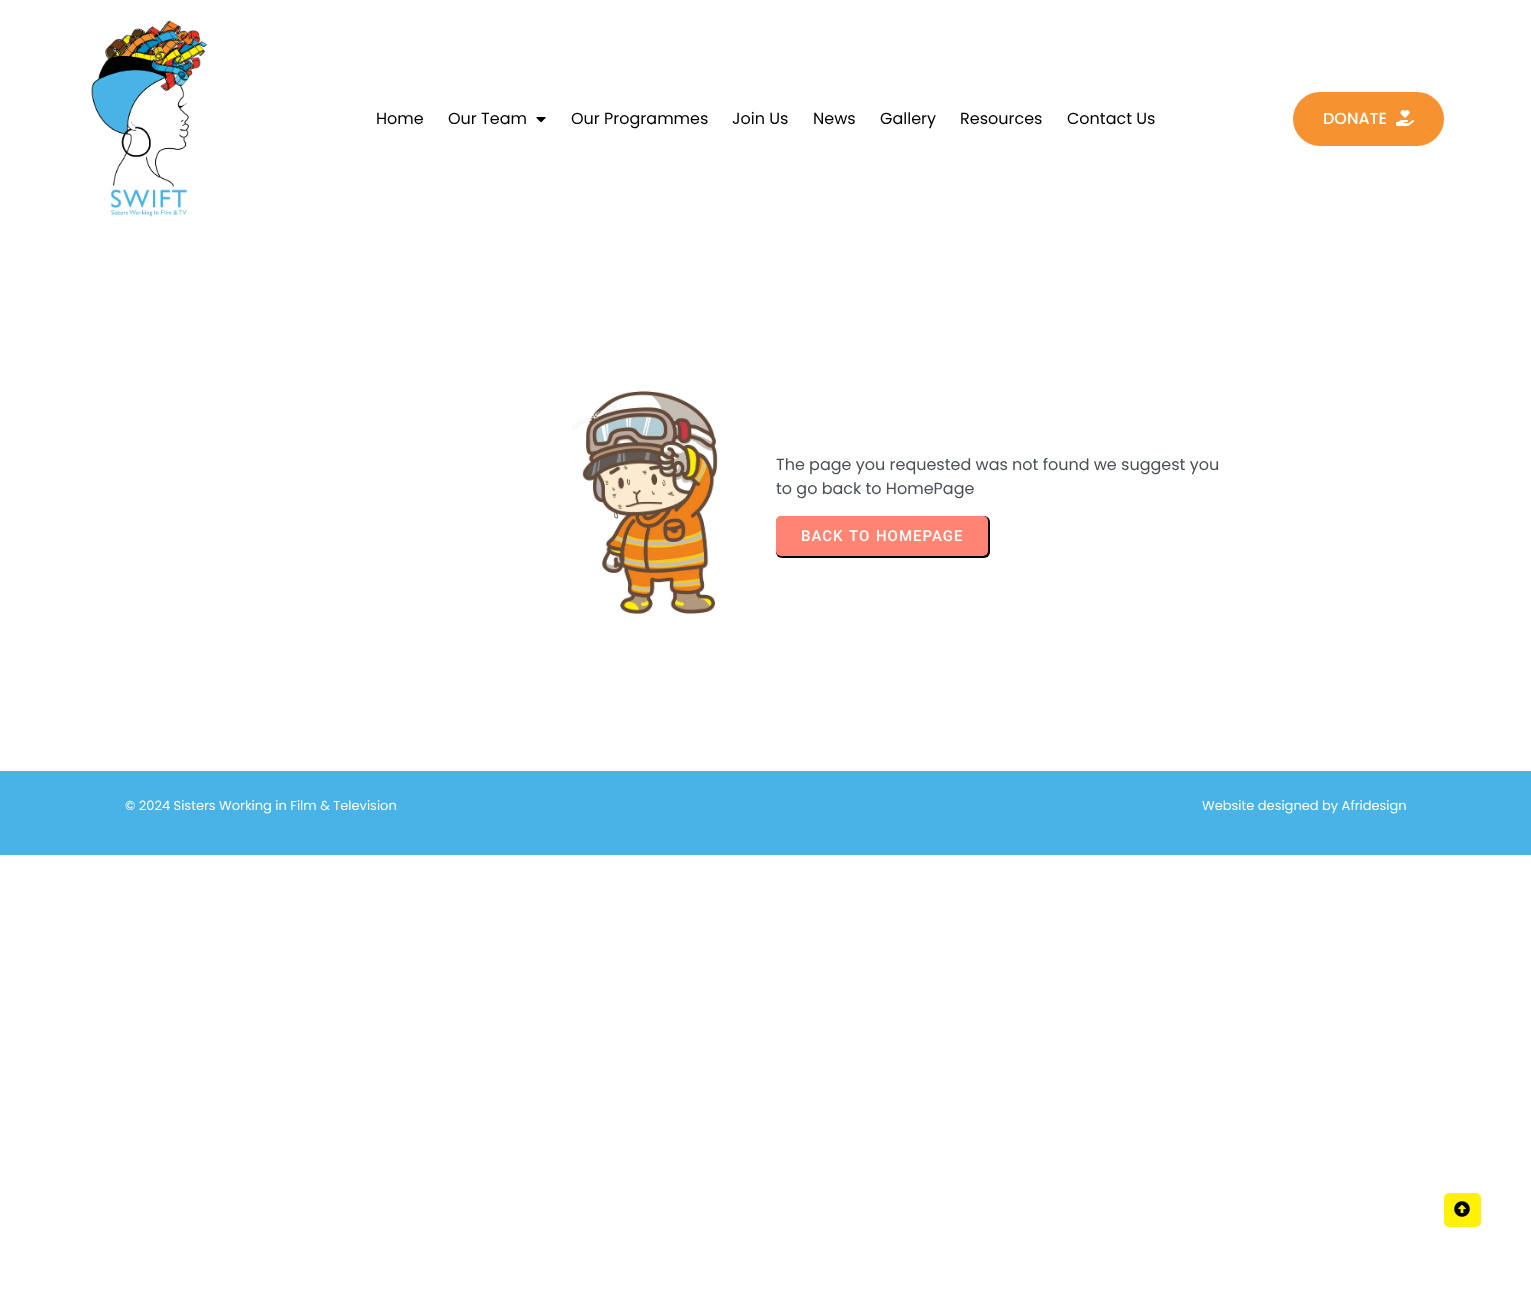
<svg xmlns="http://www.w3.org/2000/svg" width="1531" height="1292">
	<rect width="100%" height="100%" fill="#FFFFFF" />
	<image x="91" y="20" width="117" height="197" href="assets/img1.png" />
	<g font-family="Poppins" font-size="16" fill="#000000">
		<text x="376" y="124">Home</text>
		<text x="448" y="124">Our Team</text>
	</g>
	<image x="536" y="117" width="10" height="6" href="assets/img2.png" />
	<g font-family="Poppins" font-size="16" fill="#000000">
		<text x="571" y="124">Our Programmes</text>
		<text x="732" y="124">Join Us</text>
		<text x="813" y="124">News</text>
		<text x="880" y="124">Gallery</text>
		<text x="960" y="124">Resources</text>
		<text x="1067" y="124">Contact Us</text>
	</g>
	<rect x="1293" y="92" width="151" height="54" rx="27" fill="#F79231" />
	<text x="1323" y="124" font-family="Poppins" font-size="16" font-weight="500" fill="#FFFFFF">DONATE</text>
	<image x="1396" y="110" width="18" height="16" href="assets/img3.png" />
	<image x="572" y="390" width="146" height="224" href="assets/img4.png" />
	<g font-family="Poppins" font-size="16" fill="#495057">
		<text x="776" y="470">The page you requested was not found we suggest you</text>
		<text x="776" y="494">to go back to HomePage</text>
	</g>
	<rect x="776" y="516" width="214" height="42" rx="6" fill="#000000" filter="blur(0.5px)" />
	<rect x="776" y="516" width="212" height="40" rx="5" fill="#FF8474" />
	<text x="801" y="541" word-spacing="1" font-family="Roboto" font-size="15" font-weight="500" letter-spacing="1" fill="#FFFFFF">BACK TO HOMEPAGE</text>
	<rect x="0" y="771" width="1531" height="84" fill="#48B3E6" />
	<g font-family="Poppins" font-size="13" fill="#FFFFFF">
		<text x="125" y="810">© 2024 Sisters Working in Film &amp; Television</text>
		<text x="1202" y="810">Website designed by Afridesign</text>
	</g>
	<rect x="1444" y="1193" width="37" height="34" rx="5" fill="#FFF206" />
	<image x="1454" y="1201" width="16" height="16" href="assets/img5.png" />
</svg>
